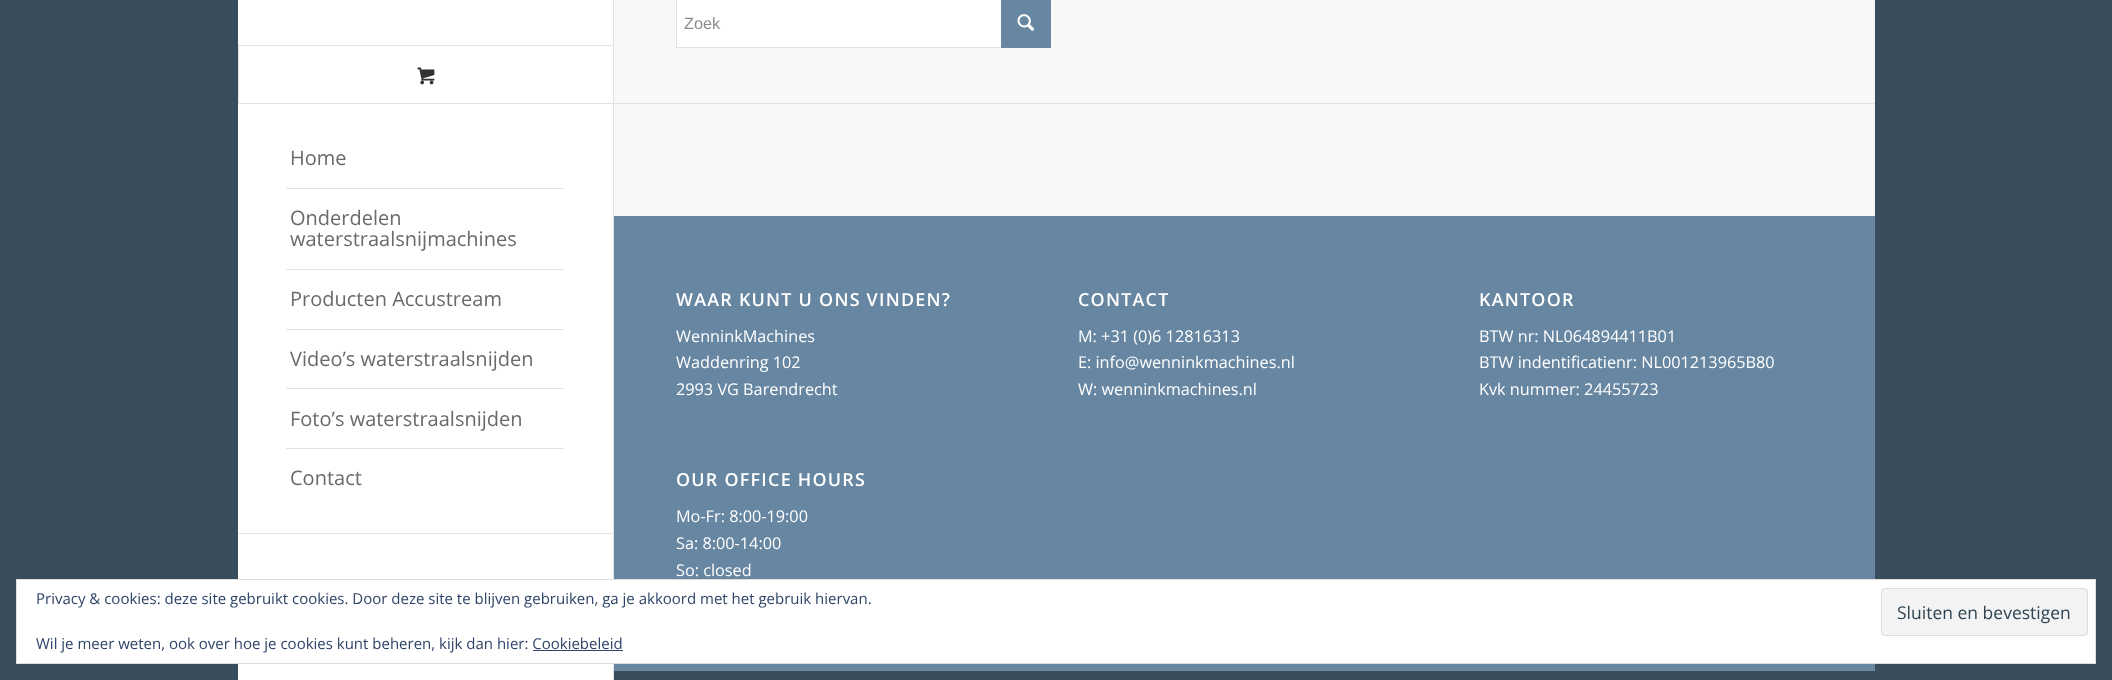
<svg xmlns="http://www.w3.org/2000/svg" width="2112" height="680">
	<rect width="100%" height="100%" fill="#3A4D5C" />
	<rect x="238" y="0" width="375" height="680" fill="#FFFFFF" />
	<rect x="238" y="533" width="375" height="1" fill="#E1E1E1" />
	<rect x="238" y="45" width="375" height="1" fill="#E1E1E1" />
	<rect x="238" y="103" width="375" height="1" fill="#E1E1E1" />
	<rect x="238" y="46" width="1" height="58" fill="#E1E1E1" />
	<image x="417" y="67" width="18" height="18" href="assets/img1.png" />
	<rect x="286" y="188" width="278" height="1" fill="#E1E1E1" />
	<text x="290" y="165" font-family="Open Sans" font-size="20" fill="#6B696B">Home</text>
	<rect x="286" y="269" width="278" height="1" fill="#E1E1E1" />
	<g font-family="Open Sans" font-size="20" fill="#6B696B">
		<text x="290" y="225">Onderdelen</text>
		<text x="290" y="246">waterstraalsnijmachines</text>
	</g>
	<rect x="286" y="329" width="278" height="1" fill="#E1E1E1" />
	<text x="290" y="306" font-family="Open Sans" font-size="20" fill="#6B696B">Producten Accustream</text>
	<rect x="286" y="388" width="278" height="1" fill="#E1E1E1" />
	<text x="290" y="366" font-family="Open Sans" font-size="20" fill="#6B696B">Video’s waterstraalsnijden</text>
	<rect x="286" y="448" width="278" height="1" fill="#E1E1E1" />
	<g font-family="Open Sans" font-size="20" fill="#6B696B">
		<text x="290" y="426">Foto’s waterstraalsnijden</text>
		<text x="290" y="485">Contact</text>
	</g>
	<rect x="613" y="0" width="1" height="680" fill="#E1E1E1" />
	<rect x="614" y="0" width="1261" height="216" fill="#F8F8F8" />
	<rect x="677" y="0" width="324" height="47" fill="#FFFFFF" />
	<rect x="676.5" y="-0.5" width="374" height="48" fill="none" stroke="#E1E1E1" />
	<text x="684" y="29" font-family="Liberation Sans" font-size="16.25" fill="#8D8D8D">Zoek</text>
	<rect x="1001" y="0" width="50" height="48" fill="#6786A1" />
	<image x="1017" y="14" width="18" height="17" href="assets/img2.png" />
	<rect x="614" y="103" width="1261" height="1" fill="#E1E1E1" />
	<rect x="614" y="216" width="1261" height="455" fill="#6786A1" />
	<text x="676" y="306" font-family="Open Sans" font-size="17.9" font-weight="600" letter-spacing="1.25" fill="#FFFFFF">WAAR KUNT U ONS VINDEN?</text>
	<g font-family="Open Sans" font-size="16.25" fill="#FFFFFF">
		<text x="676" y="342">WenninkMachines</text>
		<text x="676" y="368">Waddenring 102</text>
		<text x="676" y="395">2993 VG Barendrecht</text>
	</g>
	<text x="676" y="486" font-family="Open Sans" font-size="17.9" font-weight="600" letter-spacing="1.25" fill="#FFFFFF">OUR OFFICE HOURS</text>
	<g font-family="Open Sans" font-size="16.25" fill="#FFFFFF">
		<text x="676" y="522">Mo-Fr: 8:00-19:00</text>
		<text x="676" y="549">Sa: 8:00-14:00</text>
		<text x="676" y="576">So: closed</text>
	</g>
	<text x="1078" y="306" font-family="Open Sans" font-size="17.9" font-weight="600" letter-spacing="1.25" fill="#FFFFFF">CONTACT</text>
	<g font-family="Open Sans" font-size="16.25" fill="#FFFFFF">
		<text x="1078" y="342">M: +31 (0)6 12816313</text>
		<text x="1078" y="368">E: info@wenninkmachines.nl</text>
		<text x="1078" y="395">W: wenninkmachines.nl</text>
	</g>
	<text x="1479" y="306" font-family="Open Sans" font-size="17.9" font-weight="600" letter-spacing="1.25" fill="#FFFFFF">KANTOOR</text>
	<g font-family="Open Sans" font-size="16.25" fill="#FFFFFF">
		<text x="1479" y="342">BTW nr: NL064894411B01</text>
		<text x="1479" y="368">BTW indentificatienr: NL001213965B80</text>
		<text x="1479" y="395">Kvk nummer: 24455723</text>
	</g>
	<rect x="16.5" y="579.5" width="2079" height="84" fill="#FFFFFF" stroke="#DEDEDE" />
	<text x="36" y="604" font-family="Open Sans" font-size="15" fill="#2E4467">Privacy &amp; cookies: deze site gebruikt cookies. Door deze site te blijven gebruiken, ga je akkoord met het gebruik hiervan.</text>
	<rect x="1881.5" y="588.5" width="206" height="47" rx="3.5" fill="#F3F3F3" stroke="#DEDEDE" />
	<text x="1897" y="619" font-family="Open Sans" font-size="17.5" fill="#2E4453">Sluiten en bevestigen</text>
	<text x="36" y="649" font-family="Open Sans" font-size="15" fill="#2E4467">Wil je meer weten, ook over hoe je cookies kunt beheren, kijk dan hier: Cookiebeleid</text>
	<rect x="533" y="650" width="90" height="1" fill="#2E4467" />
</svg>
